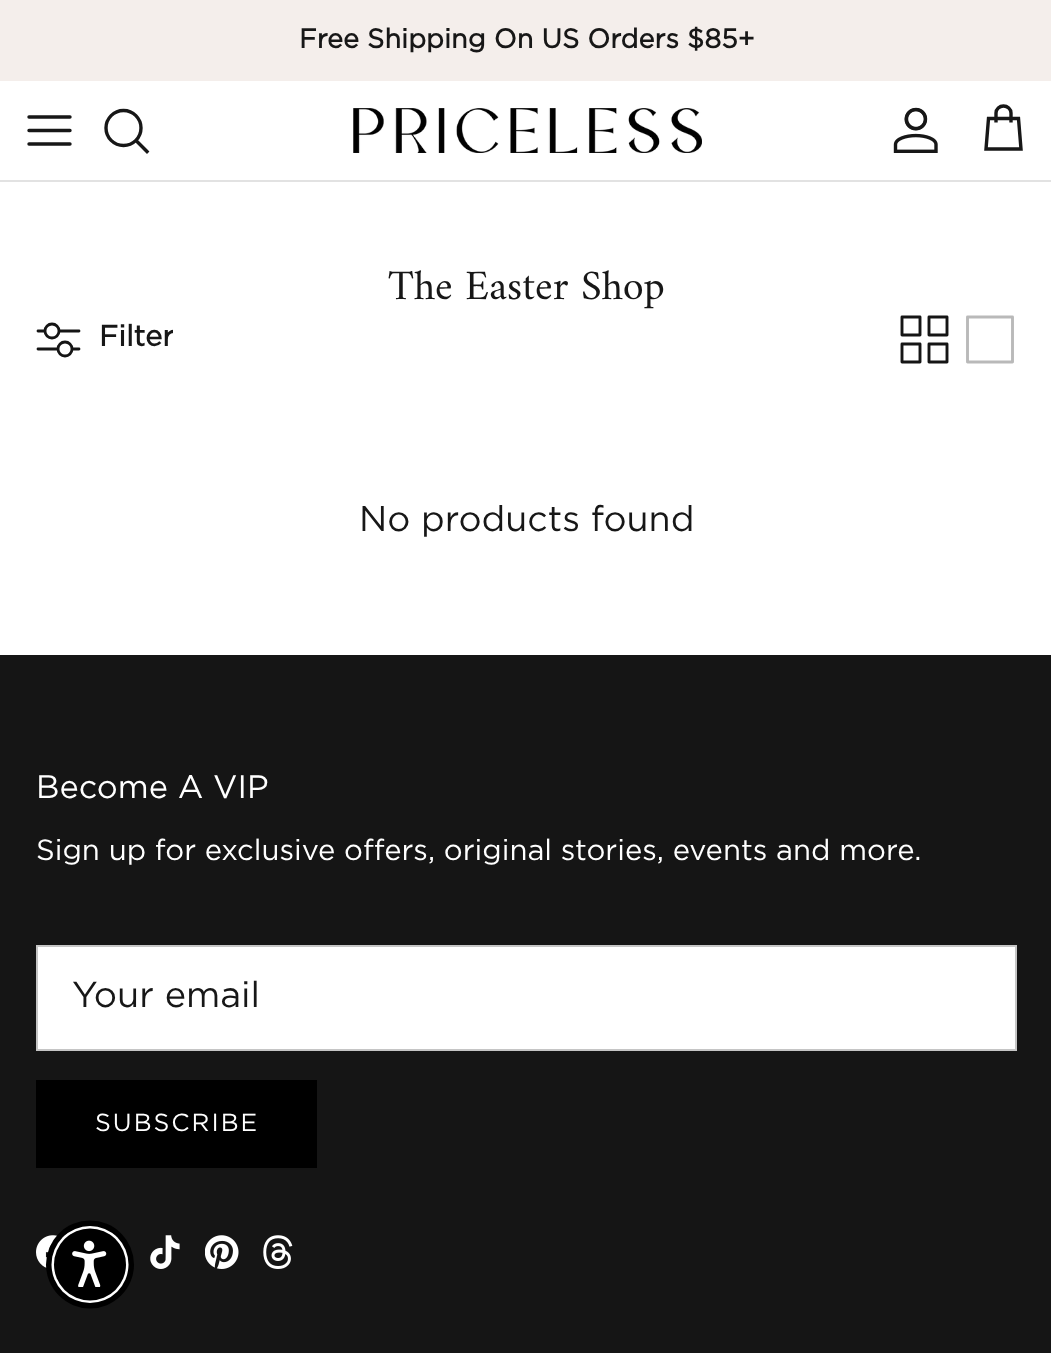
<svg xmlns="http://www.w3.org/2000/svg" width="1051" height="1353">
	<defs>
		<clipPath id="clip1"><rect x="36" y="297" width="137" height="88" /></clipPath>
	</defs>
	<rect width="100%" height="100%" fill="#FFFFFF" />
	<rect x="0" y="0" width="1051" height="81" fill="#F4EEEB" />
	<text x="299" y="48" font-family="Gotham" font-size="27" font-weight="700" fill="#171717">Free Shipping On US Orders $85+</text>
	<rect x="0" y="180" width="1051" height="2" fill="#E2E2E2" />
	<path d="M29 130.5H70M29 117H70M29 144H70" fill="none" stroke="#171717" stroke-width="3.4" stroke-linecap="round" stroke-linejoin="round" />
	<circle cx="123.5" cy="128" r="17.5" fill="none" stroke="#171717" stroke-width="3.4" />
	<path d="M137 141.5L147 151.5" fill="none" stroke="#171717" stroke-width="3.4" stroke-linecap="square" />
	<image x="353" y="108" width="349" height="45" href="assets/img1.png" />
	<image x="893" y="107" width="45" height="46" href="assets/img2.png" />
	<path d="M1011 122.5V113C1011 109 1007.5 106 1003.5 106C999.5 106 996 109 996 113V122.5M988.5 118.5H1018.5L1021 149H986Z" fill="none" stroke="#171717" stroke-width="3.4" />
	<text x="388" y="299" font-family="Amiri Quran" font-size="42.25" fill="#171717">The Easter Shop</text>
	<path d="M38 331H79M38 349H79" fill="none" stroke="#151515" stroke-width="2.8" stroke-linecap="round" stroke-linejoin="round" />
	<circle cx="52" cy="331" r="7" fill="#FFFFFF" stroke="#151515" stroke-width="2.8" />
	<circle cx="65" cy="349" r="7" fill="#FFFFFF" stroke="#151515" stroke-width="2.8" />
	<g clip-path="url(#clip1)">
		<text x="99" y="346" font-family="Gotham" font-size="29.25" font-weight="700" fill="#171717">Filter</text>
	</g>
	<path d="M902 317H920V335H902V317M929 317H947V335H929V317M929 344H947V362H929V344M902 344H920V362H902V344" fill="none" stroke="#151515" stroke-width="2.9" stroke-linecap="round" stroke-linejoin="round" />
	<path d="M967.5 317H1012.5V362H967.5V317" fill="none" stroke="#B9B9B9" stroke-width="2.9" stroke-linecap="round" stroke-linejoin="round" />
	<text x="359" y="531" font-family="Gotham" font-size="35.75" fill="#171717">No products found</text>
	<rect x="0" y="655" width="1051" height="698" fill="#151515" />
	<text x="36" y="798" font-family="Gotham" font-size="32.5" fill="#FFFFFF">Become A VIP</text>
	<text x="36" y="860" font-family="Gotham" font-size="29.25" fill="#FFFFFF">Sign up for exclusive offers, original stories, events and more.</text>
	<rect x="37" y="946" width="979" height="104" fill="#FFFFFF" stroke="#C5C5C5" stroke-width="2" />
	<text x="72" y="1007" font-family="Gotham" font-size="36" fill="#171717">Your email</text>
	<rect x="36" y="1080" width="281" height="88" fill="#000000" />
	<text x="95" y="1131" font-family="Gotham" font-size="24.75" letter-spacing="2" fill="#FFFFFF">SUBSCRIBE</text>
	<image x="36" y="1235" width="22" height="33" href="assets/img3.png" />
	<image x="150" y="1235" width="30" height="34" href="assets/img4.png" />
	<image x="205" y="1235" width="34" height="34" href="assets/img5.png" />
	<image x="263" y="1235" width="30" height="34" href="assets/img6.png" />
	<circle cx="90" cy="1264.5" r="44" fill="#000000" />
	<circle cx="90" cy="1264.5" r="38.5" fill="#FFFFFF" />
	<circle cx="90" cy="1264.5" r="36" fill="#000000" />
	<image x="72" y="1240" width="35" height="47" href="assets/img7.png" />
</svg>
